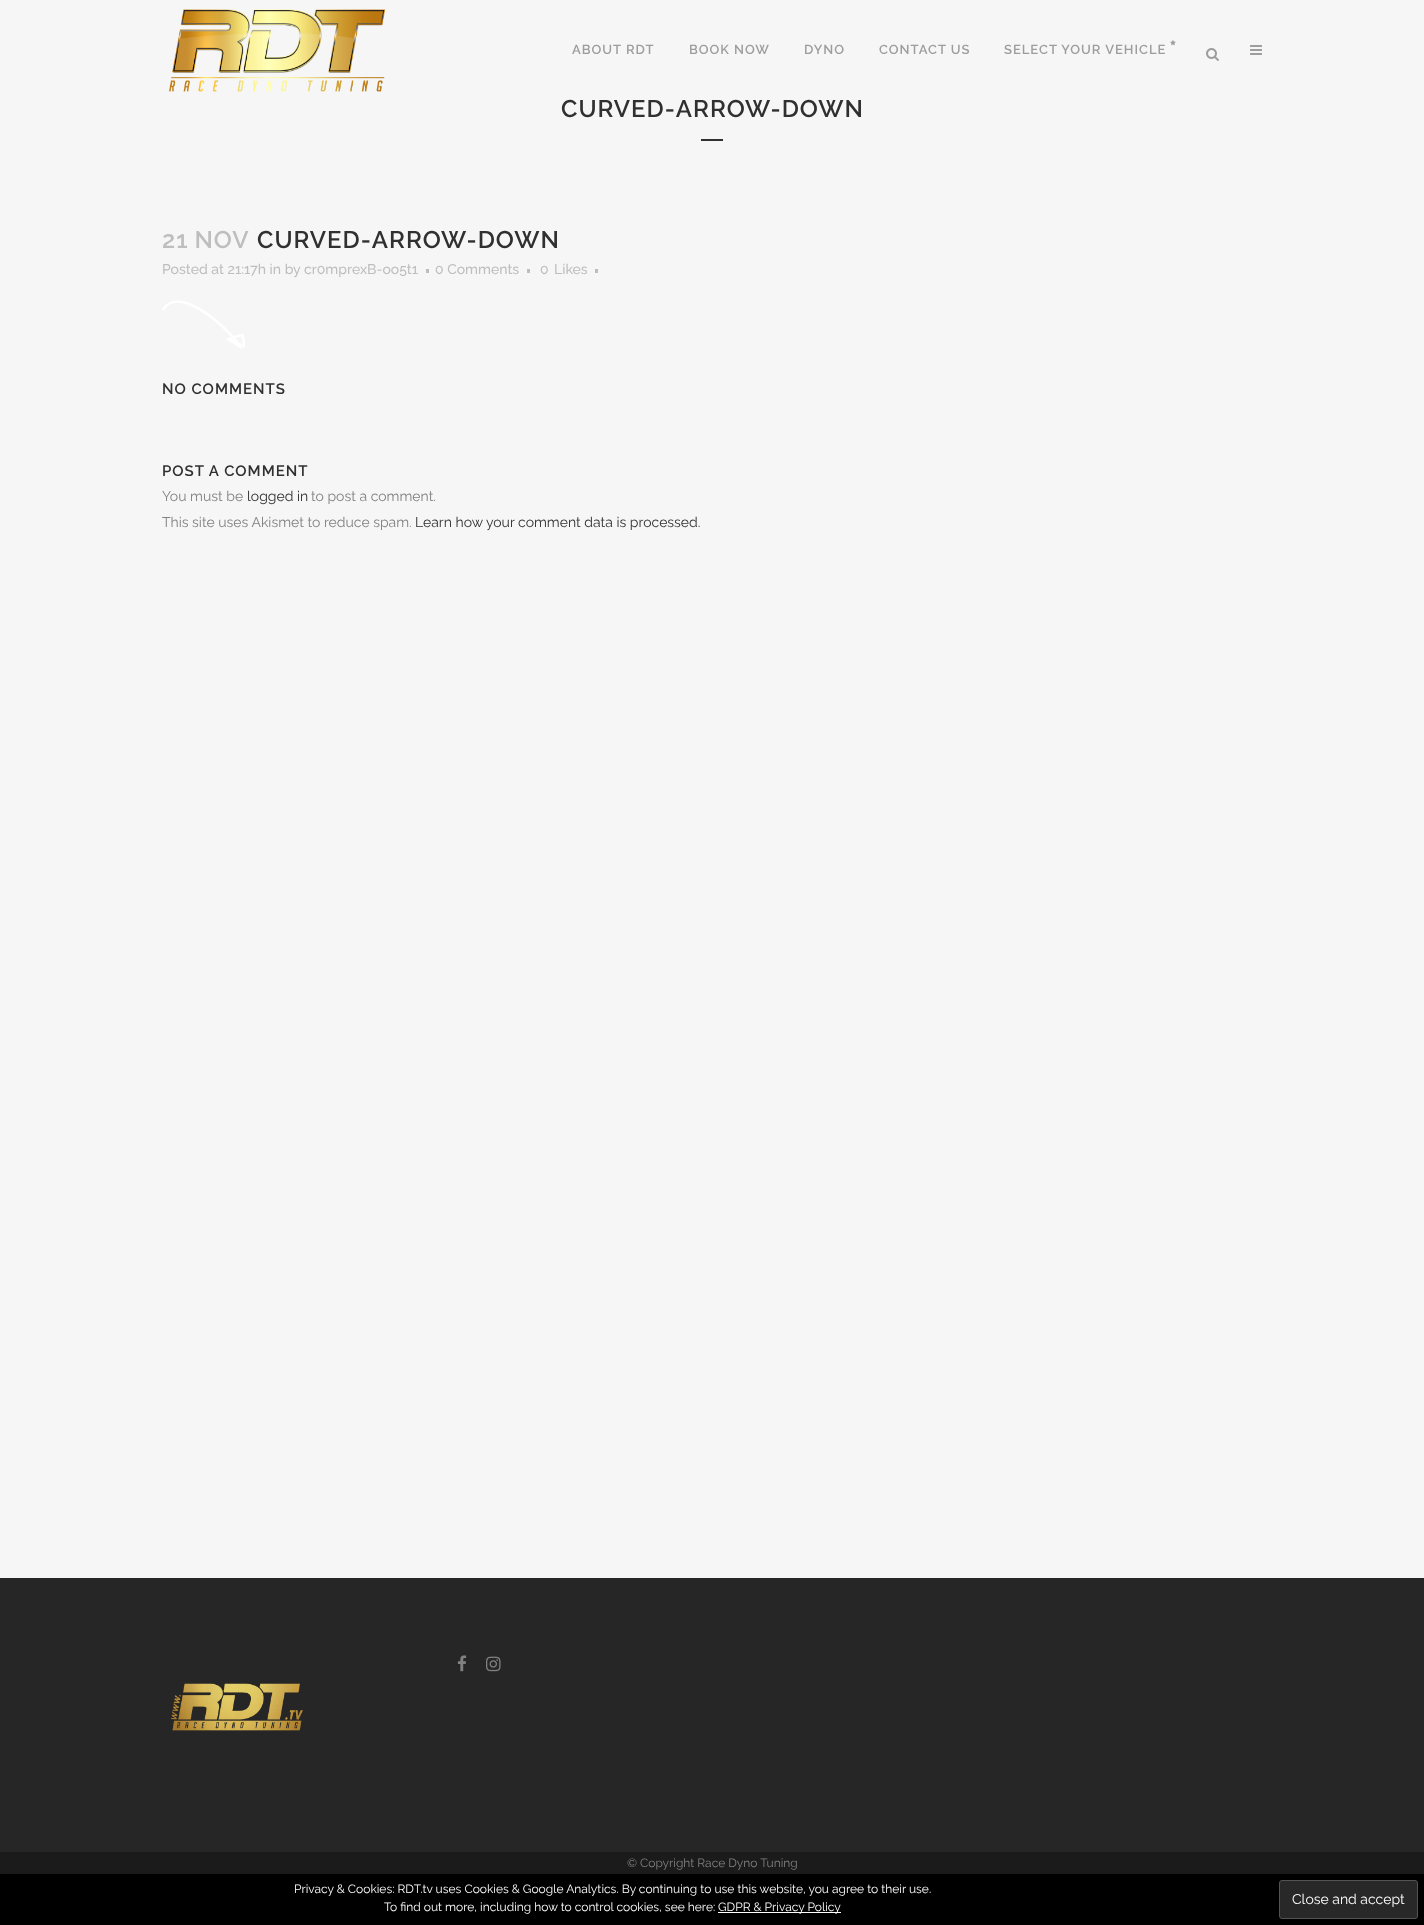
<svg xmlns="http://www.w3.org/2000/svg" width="1424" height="1925">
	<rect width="100%" height="100%" fill="#F6F6F6" />
	<image x="169" y="9" width="216" height="83" href="assets/img1.png" />
	<g font-family="Raleway" font-size="13" font-weight="600" letter-spacing="1" fill="#9D9D9D">
		<text x="572" y="54">ABOUT RDT</text>
		<text x="689" y="54">BOOK NOW</text>
		<text x="804" y="54">DYNO</text>
		<text x="879" y="54">CONTACT US</text>
	</g>
	<image x="1170" y="40" width="6" height="6" href="assets/img2.png" />
	<text x="1004" y="54" font-family="Raleway" font-size="13" font-weight="600" letter-spacing="1" fill="#9D9D9D">SELECT YOUR VEHICLE</text>
	<image x="1206" y="48" width="13" height="13" href="assets/img3.png" />
	<image x="1250" y="45" width="12" height="10" href="assets/img4.png" />
	<text x="561" y="117" font-family="Raleway" font-size="24" font-weight="600" letter-spacing="1" fill="#303030">CURVED-ARROW-DOWN</text>
	<rect x="701" y="139" width="22" height="2" fill="#303030" />
	<text x="162" y="248" word-spacing="-1" font-family="Raleway" font-size="24" font-weight="600" letter-spacing="1" fill="#BEBEBE">21 NOV</text>
	<text x="257" y="248" font-family="Raleway" font-size="24" font-weight="600" letter-spacing="1" fill="#303030">CURVED-ARROW-DOWN</text>
	<text x="162" y="274" font-family="Raleway" font-size="14" font-weight="500" fill="#BEBEBE">Posted at 21:17h in by cr0mprexB-oo5t1</text>
	<rect x="426" y="269" width="3" height="4" fill="#BEBEBE" />
	<text x="435" y="274" font-family="Raleway" font-size="14" font-weight="500" fill="#BEBEBE">0 Comments</text>
	<rect x="527" y="269" width="3" height="4" fill="#BEBEBE" />
	<g font-family="Raleway" font-size="14" font-weight="500" fill="#BEBEBE">
		<text x="540" y="274">0</text>
		<text x="554" y="274">Likes</text>
	</g>
	<rect x="595" y="269" width="3" height="4" fill="#BEBEBE" />
	<image x="162" y="300" width="83" height="49" href="assets/img5.png" />
	<g font-family="Raleway" font-size="15" font-weight="600" letter-spacing="1" fill="#303030">
		<text x="162" y="394">NO COMMENTS</text>
		<text x="162" y="476">POST A COMMENT</text>
	</g>
	<text x="162" y="501" font-family="Raleway" font-size="14" fill="#818181">You must be</text>
	<text x="247" y="501" font-family="Raleway" font-size="14" fill="#303030">logged in</text>
	<g font-family="Raleway" font-size="14" fill="#818181">
		<text x="311" y="501">to post a comment.</text>
		<text x="162" y="527">This site uses Akismet to reduce spam.</text>
	</g>
	<text x="415" y="527" font-family="Raleway" font-size="14" fill="#303030">Learn how your comment data is processed.</text>
	<rect x="0" y="1578" width="1424" height="274" fill="#262626" />
	<image x="457" y="1655" width="10" height="17" href="assets/img6.png" />
	<image x="486" y="1656" width="15" height="16" href="assets/img7.png" />
	<image x="171" y="1683" width="132" height="48" href="assets/img8.png" />
	<rect x="0" y="1852" width="1424" height="22" fill="#1B1B1B" />
	<text x="627" y="1867" font-family="Raleway" font-size="12" fill="#818181">© Copyright Race Dyno Tuning</text>
	<rect x="0" y="1874" width="1424" height="51" fill="#000000" />
	<g font-family="Raleway" font-size="12" fill="#FFFFFF">
		<text x="294" y="1893">Privacy &amp; Cookies: RDT.tv uses Cookies &amp; Google Analytics. By continuing to use this website, you agree to their use.</text>
		<text x="384" y="1911">To find out more, including how to control cookies, see here:</text>
	</g>
	<rect x="718" y="1912" width="123" height="1" fill="#FFFFFF" />
	<text x="718" y="1911" font-family="Raleway" font-size="12" fill="#FFFFFF">GDPR &amp; Privacy Policy</text>
	<rect x="1279.5" y="1880.5" width="138" height="38" rx="2.5" fill="#282828" stroke="#535353" />
	<text x="1292" y="1904" font-family="Raleway" font-size="14" fill="#FFFFFF">Close and accept</text>
</svg>
